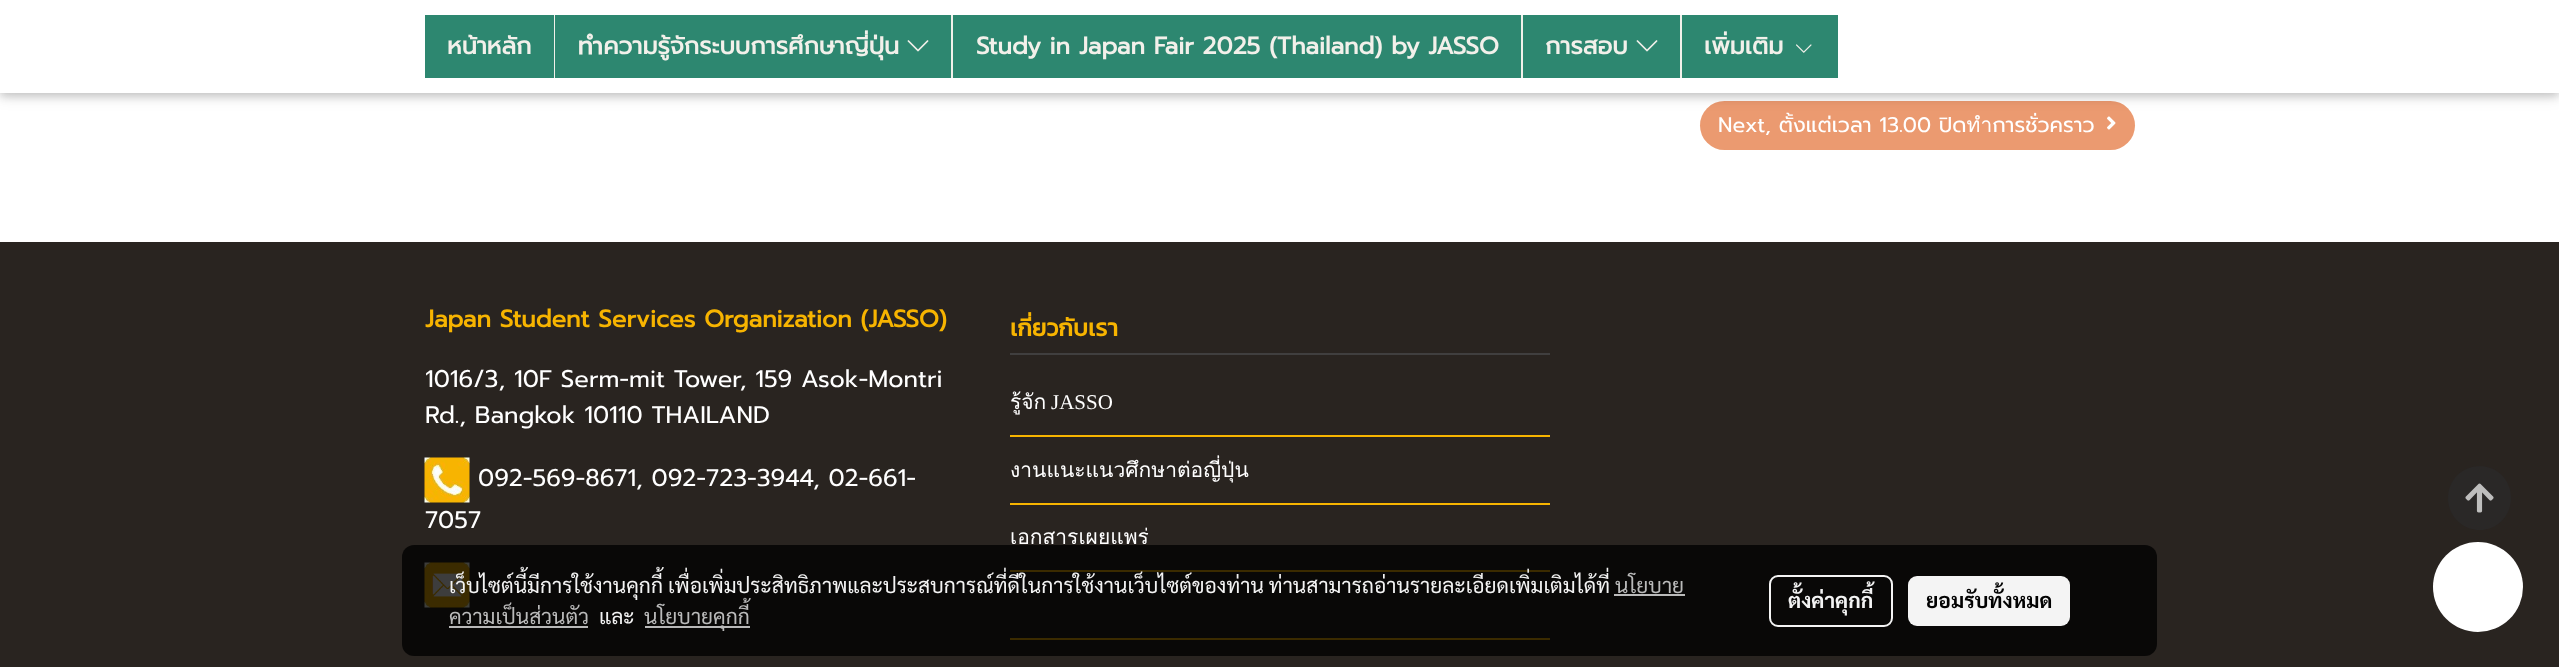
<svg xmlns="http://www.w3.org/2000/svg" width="2559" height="667">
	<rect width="100%" height="100%" fill="#FFFFFF" />
	<rect x="1700" y="101" width="435" height="49" rx="24.5" fill="#EB9A70" />
	<image x="2107" y="116" width="9" height="14" href="assets/img3.png" />
	<rect x="0" y="3" width="2559" height="93" fill="#000000" fill-opacity="0.12" filter="blur(7.5px)" />
	<rect x="0" y="3" width="2559" height="93" fill="#000000" fill-opacity="0.16" filter="blur(4px)" />
	<rect x="0" y="0" width="2559" height="93" fill="#FFFFFF" />
	<rect x="554" y="15" width="1" height="63" fill="#F2F0EA" />
	<rect x="425" y="15" width="129" height="63" fill="#2D8770" />
	<text x="447" y="54" font-family="Prompt" font-size="24" font-weight="700" fill="#F2F0EA">หน้าหลัก</text>
	<rect x="951" y="15" width="2" height="63" fill="#F2F0EA" />
	<rect x="555" y="15" width="396" height="63" fill="#2D8770" />
	<text x="578" y="54" font-family="Prompt" font-size="24" font-weight="700" fill="#F2F0EA">ทำความรู้จักระบบการศึกษาญี่ปุ่น</text>
	<image x="907" y="40" width="22" height="12" href="assets/img1.png" />
	<rect x="1521" y="15" width="2" height="63" fill="#F2F0EA" />
	<rect x="953" y="15" width="568" height="63" fill="#2D8770" />
	<text x="976" y="54" font-family="Prompt" font-size="24" font-weight="700" fill="#F2F0EA">Study in Japan Fair 2025 (Thailand) by JASSO</text>
	<rect x="1680" y="15" width="2" height="63" fill="#F2F0EA" />
	<rect x="1523" y="15" width="157" height="63" fill="#2D8770" />
	<text x="1545" y="54" font-family="Prompt" font-size="24" font-weight="700" fill="#F2F0EA">การสอบ</text>
	<image x="1636" y="40" width="22" height="12" href="assets/img1.png" />
	<rect x="1682" y="15" width="156" height="63" fill="#2D8770" />
	<text x="1704" y="54" font-family="Prompt" font-size="24" font-weight="700" fill="#F2F0EA">เพิ่มเติม</text>
	<image x="1796" y="44" width="16" height="9" href="assets/img2.png" />
	<text x="1718" y="132" font-family="Prompt" font-size="21" fill="#FFFFFF">Next, ตั้งแต่เวลา 13.00 ปิดทำการชั่วคราว</text>
	<rect x="0" y="242" width="2559" height="425" fill="#292420" />
	<text x="425" y="327" font-family="Prompt" font-size="24" font-weight="700" fill="#F7B400">Japan Student Services Organization (JASSO)</text>
	<g font-family="Prompt" font-size="24" fill="#FFFFFF">
		<text x="425" y="387">1016/3, 10F Serm-mit Tower, 159 Asok-Montri</text>
		<text x="425" y="423">Rd., Bangkok 10110 THAILAND</text>
	</g>
	<image x="424" y="457" width="46" height="46" href="assets/img4.png" />
	<g font-family="Prompt" font-size="24" fill="#FFFFFF">
		<text x="478" y="486">092-569-8671, 092-723-3944, 02-661-</text>
		<text x="425" y="528">7057</text>
	</g>
	<image x="424" y="562" width="46" height="46" href="assets/img5.png" />
	<rect x="1010" y="353" width="540" height="2" fill="#403F3F" />
	<text x="1010" y="336" font-family="Kanit" font-size="24" font-weight="700" fill="#F7B400">เกี่ยวกับเรา</text>
	<rect x="1010" y="435" width="540" height="2" fill="#F7B400" />
	<text x="1010" y="409" font-family="Loma" font-size="21" fill="#FFFFFF">รู้จัก</text>
	<text x="1051" y="409" font-family="Liberation Serif" font-size="21" fill="#FFFFFF">JASSO</text>
	<rect x="1010" y="503" width="540" height="2" fill="#F7B400" />
	<text x="1010" y="477" font-family="Loma" font-size="21" fill="#FFFFFF">งานแนะแนวศึกษาต่อญี่ปุ่น</text>
	<rect x="1010" y="570" width="540" height="2" fill="#F7B400" />
	<text x="1010" y="544" font-family="Loma" font-size="21" fill="#FFFFFF">เอกสารเผยแพร่</text>
	<rect x="1010" y="638" width="540" height="2" fill="#F7B400" />
	<path d="M2480 466C2462 466 2448 480 2448 498C2448 516 2462 530 2480 530C2497 530 2511 516 2511 498C2511 480 2497 466 2480 466Z" fill="#2A2827" />
	<image x="2465" y="483" width="29" height="30" href="assets/img6.png" />
	<rect x="402" y="545" width="1755" height="111" rx="12" fill="#000000" fill-opacity="0.76" />
	<text x="449" y="593" font-family="Sarabun" font-size="21" fill="#F3F3F3">เว็บไซต์นี้มีการใช้งานคุกกี้ เพื่อเพิ่มประสิทธิภาพและประสบการณ์ที่ดีในการใช้งานเว็บไซต์ของท่าน ท่านสามารถอ่านรายละเอียดเพิ่มเติมได้ที่</text>
	<text x="1615" y="593" font-family="Sarabun" font-size="21" fill="#BABABA">นโยบาย</text>
	<rect x="1614" y="594" width="71" height="2" fill="#BABABA" />
	<text x="449" y="624" font-family="Sarabun" font-size="21" fill="#BABABA">ความเป็นส่วนตัว</text>
	<rect x="449" y="626" width="139" height="2" fill="#C2C2C2" fill-opacity="0.95" />
	<text x="599" y="624" font-family="Sarabun" font-size="21" fill="#F3F3F3">และ</text>
	<rect x="645" y="626" width="105" height="2" fill="#C2C2C2" fill-opacity="0.95" />
	<text x="644" y="624" font-family="Sarabun" font-size="21" fill="#BABABA">นโยบายคุกกี้</text>
	<rect x="1770" y="576" width="122" height="50" rx="8" fill="none" stroke="#F4F4F4" stroke-width="2" />
	<text x="1788" y="608" font-family="Sarabun" font-size="21" font-weight="700" fill="#F3F3F3">ตั้งค่าคุกกี้</text>
	<rect x="1908" y="576" width="162" height="50" rx="9" fill="#F4F4F4" />
	<text x="1926" y="608" font-family="Sarabun" font-size="21" font-weight="700" fill="#020202">ยอมรับทั้งหมด</text>
	<circle cx="2478" cy="587" r="45" fill="#FFFFFF" />
</svg>
